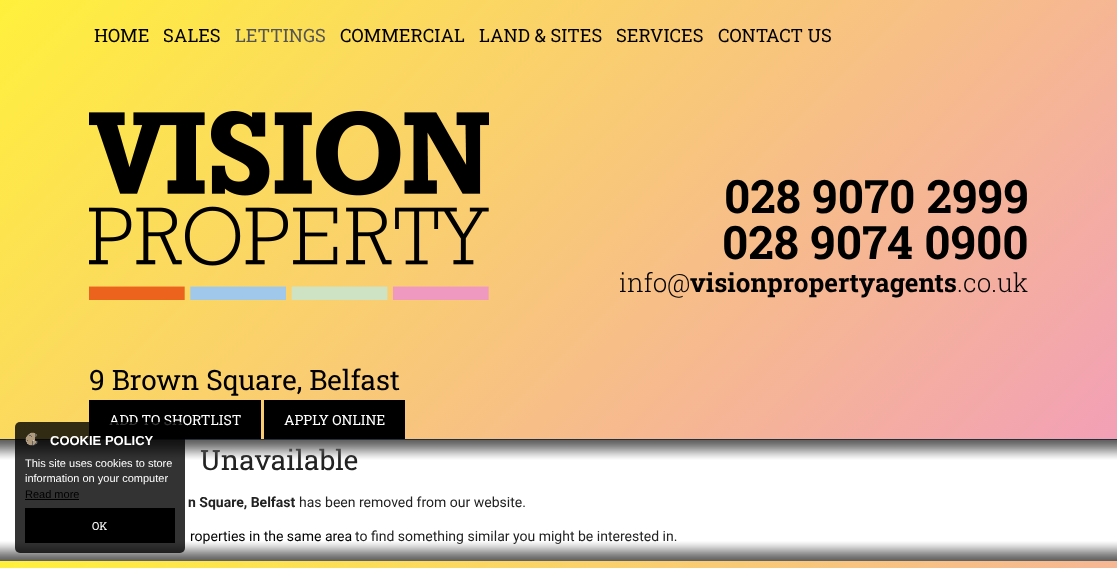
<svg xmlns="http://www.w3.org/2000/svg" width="1117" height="568">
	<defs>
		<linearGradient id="g1" gradientUnits="userSpaceOnUse" x1="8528" y1="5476" x2="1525" y2="-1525"><stop offset="0" stop-color="#FFF03C" /><stop offset="0.12" stop-color="#EB641C" /><stop offset="0.25" stop-color="#FFF03C" /><stop offset="0.38" stop-color="#A0C9EC" /><stop offset="0.5" stop-color="#FFF03C" /><stop offset="0.62" stop-color="#CEE4C4" /><stop offset="0.75" stop-color="#FFF03C" /><stop offset="0.88" stop-color="#F199C0" /><stop offset="1" stop-color="#FFF03C" /></linearGradient>
		<linearGradient id="g2" gradientUnits="userSpaceOnUse" x1="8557" y1="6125" x2="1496" y2="-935"><stop offset="0" stop-color="#FFF03C" /><stop offset="0.12" stop-color="#EB641C" /><stop offset="0.25" stop-color="#FFF03C" /><stop offset="0.38" stop-color="#A0C9EC" /><stop offset="0.5" stop-color="#FFF03C" /><stop offset="0.62" stop-color="#CEE4C4" /><stop offset="0.75" stop-color="#FFF03C" /><stop offset="0.88" stop-color="#F199C0" /><stop offset="1" stop-color="#FFF03C" /></linearGradient>
	</defs>
	<rect width="100%" height="100%" fill="#FFFFFF" />
	<rect x="0" y="0" width="1117" height="439" fill="url(#g1)" />
	<rect x="0" y="439" width="1117" height="1" fill="#25303A" />
	<g font-family="Roboto Slab" font-size="18.25" fill="#000000">
		<text x="94" y="42">HOME</text>
		<text x="163" y="42">SALES</text>
	</g>
	<text x="235" y="42" font-family="Roboto Slab" font-size="18.25" fill="#555555">LETTINGS</text>
	<g font-family="Roboto Slab" font-size="18.25" fill="#000000">
		<text x="340" y="42">COMMERCIAL</text>
		<text x="479" y="42">LAND &amp; SITES</text>
		<text x="616" y="42">SERVICES</text>
		<text x="718" y="42">CONTACT US</text>
	</g>
	<image x="89" y="111" width="400" height="189" href="assets/img1.png" />
	<g font-family="Roboto Slab" font-size="46" font-weight="700" fill="#000000">
		<text x="724" y="213">028 9070 2999</text>
		<text x="722" y="259">028 9074 0900</text>
	</g>
	<text x="619" y="292" font-family="Roboto Slab" font-size="26" font-weight="300" fill="#000000">info@</text>
	<text x="690" y="292" font-family="Roboto Slab" font-size="26" font-weight="700" fill="#000000">visionpropertyagents</text>
	<text x="957" y="292" font-family="Roboto Slab" font-size="26" font-weight="300" fill="#000000">.co.uk</text>
	<text x="89" y="390" font-family="Roboto Slab" font-size="28" fill="#000000">9 Brown Square, Belfast</text>
	<rect x="89" y="400" width="172" height="39" fill="#000000" />
	<text x="109" y="425" font-family="Roboto Slab" font-size="14" fill="#FFFFFF">ADD TO SHORTLIST</text>
	<rect x="264" y="400" width="141" height="39" fill="#000000" />
	<text x="284" y="425" font-family="Roboto Slab" font-size="14" fill="#FFFFFF">APPLY ONLINE</text>
	<text x="200" y="470" font-family="Roboto Slab" font-size="28" fill="#222222">Unavailable</text>
	<image x="0" y="440" width="1117" height="20" href="assets/img3.png" />
	<text x="190" y="541" font-family="Roboto" font-size="14" fill="#000000">roperties in the same area</text>
	<text x="355" y="541" font-family="Roboto" font-size="14" fill="#222222">to find something similar you might be interested in.</text>
	<image x="0" y="541" width="1117" height="20" href="assets/img4.png" />
	<rect x="15" y="422" width="170" height="131" rx="5" fill="#000000" fill-opacity="0.8" />
	<image x="25" y="432" width="13" height="14" href="assets/img2.png" />
	<text x="50" y="445" font-family="Liberation Sans" font-size="13" font-weight="700" fill="#FFFFFF">COOKIE POLICY</text>
	<g font-family="Liberation Sans" font-size="11" fill="#FFFFFF">
		<text x="25" y="467">This site uses cookies to store</text>
		<text x="25" y="482">information on your computer</text>
	</g>
	<text x="25" y="498" font-family="Liberation Sans" font-size="11" fill="#000000">Read more</text>
	<rect x="25" y="499" width="54" height="1" fill="#000000" />
	<rect x="25" y="508" width="150" height="35" fill="#000000" />
	<text x="92" y="530" font-family="Roboto Slab" font-size="11" fill="#FFFFFF">OK</text>
	<text x="188" y="507" font-family="Roboto" font-size="14" font-weight="700" fill="#222222">n Square, Belfast</text>
	<text x="299" y="507" font-family="Roboto" font-size="14" fill="#222222">has been removed from our website.</text>
	<rect x="0" y="561" width="1117" height="7" fill="url(#g2)" />
</svg>
